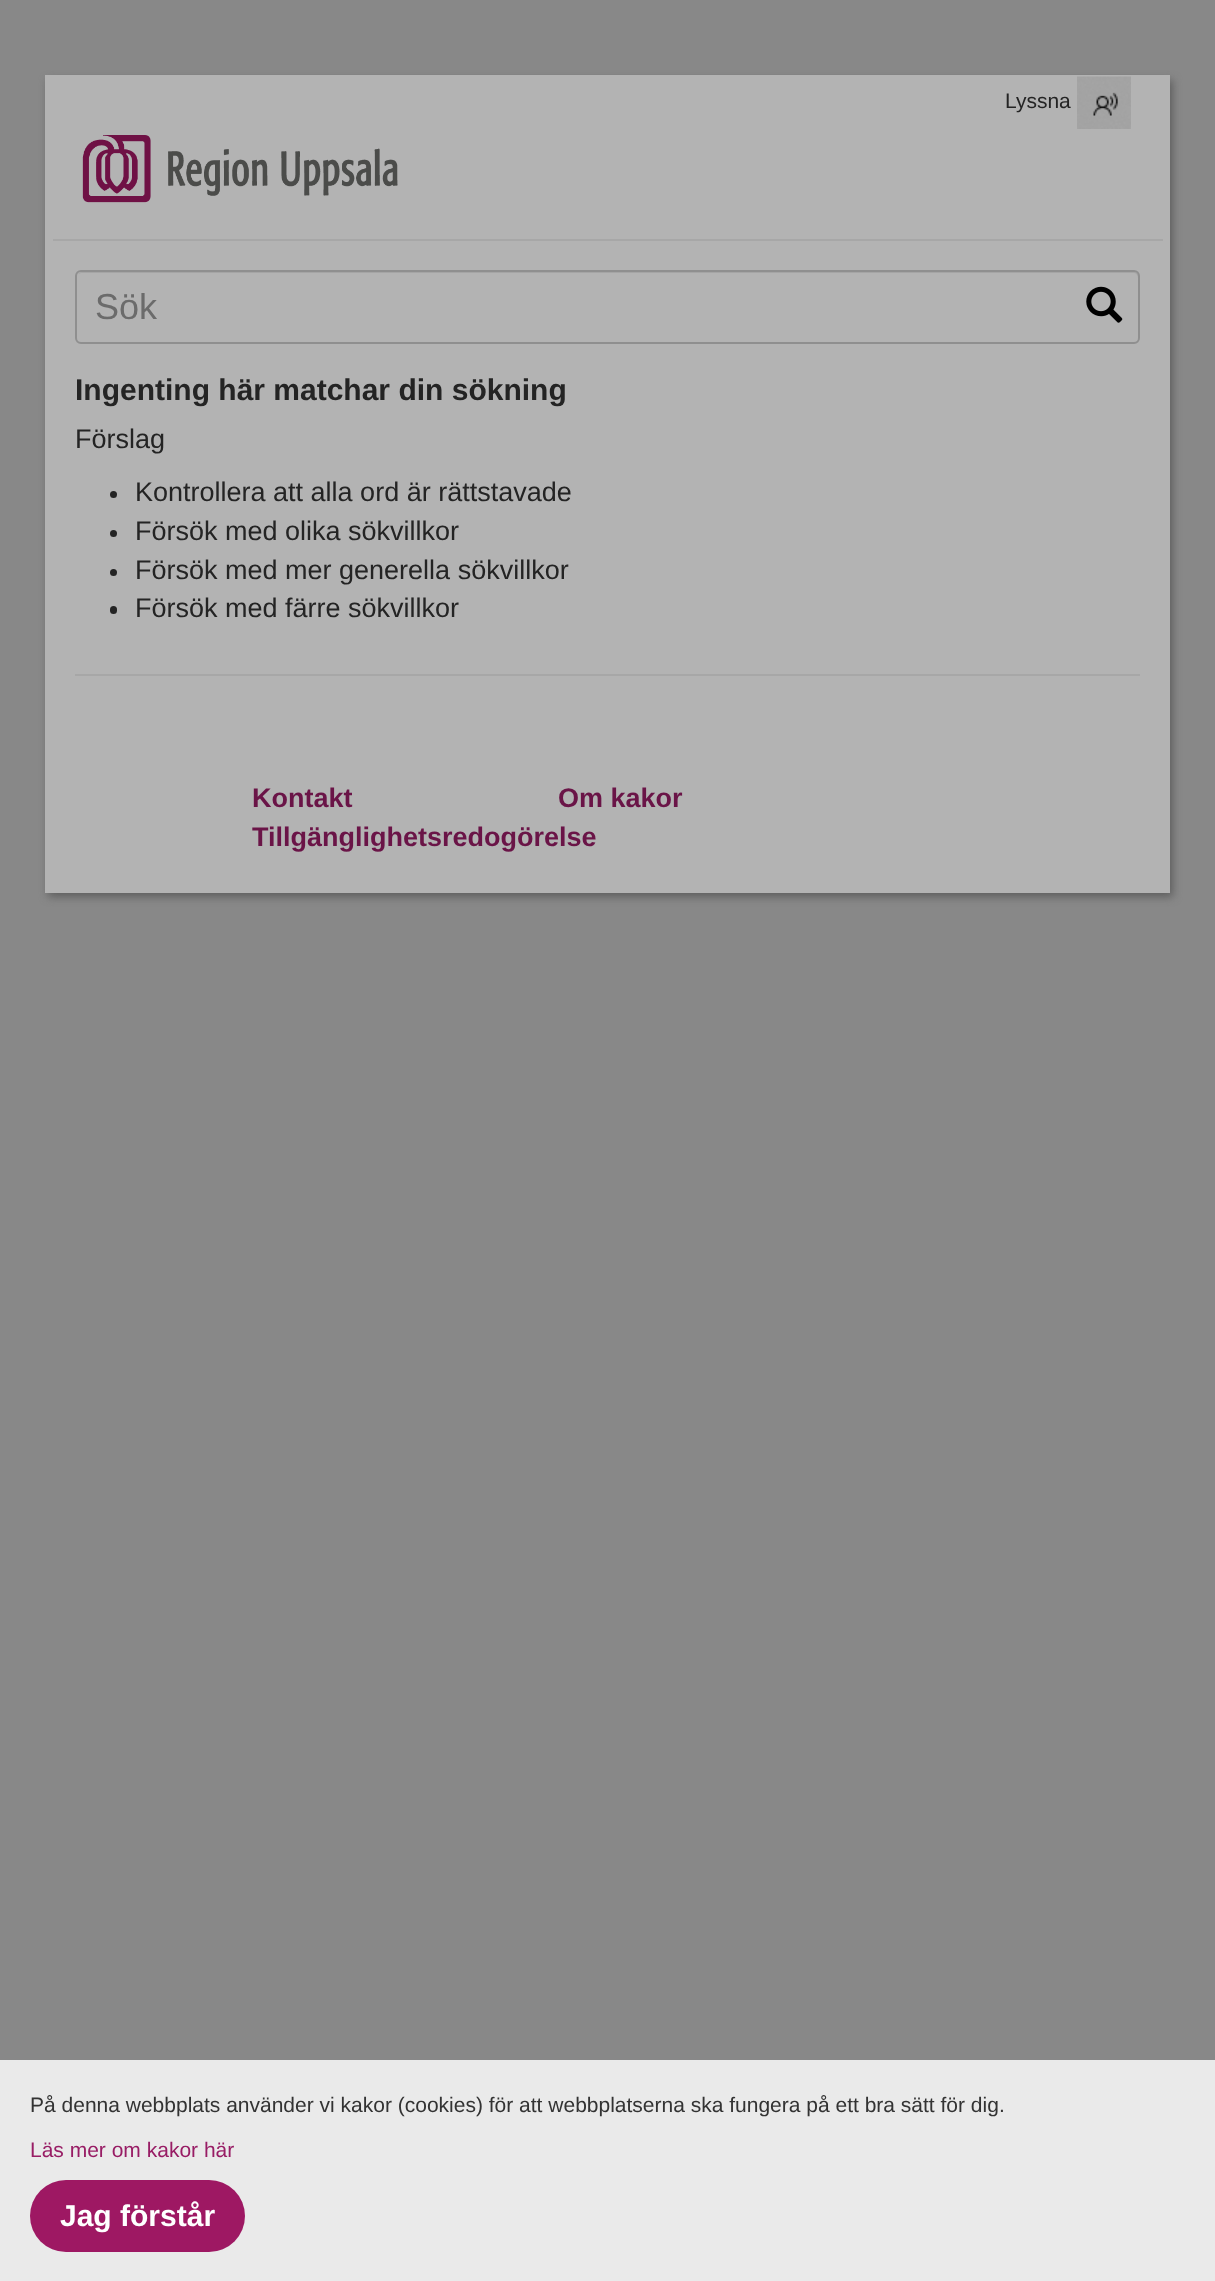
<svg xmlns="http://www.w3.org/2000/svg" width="1215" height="2281">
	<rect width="100%" height="100%" fill="#888888" />
	<rect x="48" y="80" width="1125" height="817" fill="#5F5F5F" filter="blur(4.5px)" />
	<rect x="45" y="75" width="1125" height="818" fill="#B3B3B3" />
	<text x="1005" y="108" font-family="Liberation Sans" font-size="21" fill="#242424">Lyssna</text>
	<image x="1077" y="76" width="54" height="53" href="assets/img1.png" />
	<rect x="53" y="239" width="1110" height="2" fill="#A7A7A7" />
	<image x="82" y="135" width="316" height="68" href="assets/img2.png" />
	<path d="M81 273H1134C1136 273 1138 275 1138 278V340C1139 339 1139 338 1139 337V277C1139 274 1137 272 1134 272H82C80 272 79 273 78 274Z" fill="#A5A5A5" />
	<rect x="76" y="271" width="1063" height="72" rx="5" fill="none" stroke="#8F8F8F" stroke-width="2" />
	<text x="95" y="319" font-family="Liberation Sans" font-size="36" fill="#6B6B6B">Sök</text>
	<image x="1086" y="286" width="37" height="37" href="assets/img3.png" />
	<text x="75" y="400" font-family="Liberation Sans" font-size="30" font-weight="700" fill="#242424">Ingenting här matchar din sökning</text>
	<text x="75" y="448" font-family="Liberation Sans" font-size="27" fill="#242424">Förslag</text>
	<circle cx="113.5" cy="494.5" r="3.5" fill="#242424" />
	<text x="135" y="501" font-family="Liberation Sans" font-size="27" fill="#242424">Kontrollera att alla ord är rättstavade</text>
	<circle cx="113.5" cy="533.5" r="3.5" fill="#242424" />
	<text x="135" y="540" font-family="Liberation Sans" font-size="27" fill="#242424">Försök med olika sökvillkor</text>
	<circle cx="113.5" cy="572.5" r="3.5" fill="#242424" />
	<text x="135" y="579" font-family="Liberation Sans" font-size="27" fill="#242424">Försök med mer generella sökvillkor</text>
	<rect x="110" y="606" width="7" height="8" rx="3.5" fill="#242424" />
	<text x="135" y="617" font-family="Liberation Sans" font-size="27" fill="#242424">Försök med färre sökvillkor</text>
	<rect x="75" y="674" width="1065" height="2" fill="#A7A7A7" />
	<g font-family="Liberation Sans" font-size="27" font-weight="700" fill="#6A1447">
		<text x="252" y="807">Kontakt</text>
		<text x="558" y="807">Om kakor</text>
		<text x="252" y="846">Tillgänglighetsredogörelse</text>
	</g>
	<rect x="0" y="2060" width="1215" height="221" fill="#EAEAEA" />
	<text x="30" y="2112" font-family="Liberation Sans" font-size="21" fill="#333333">På denna webbplats använder vi kakor (cookies) för att webbplatserna ska fungera på ett bra sätt för dig.</text>
	<text x="30" y="2157" font-family="Liberation Sans" font-size="21" fill="#981D65">Läs mer om kakor här</text>
	<rect x="30" y="2180" width="215" height="72" rx="36" fill="#9E1863" />
	<text x="60" y="2226" font-family="Liberation Sans" font-size="30" font-weight="700" fill="#FFFFFF">Jag förstår</text>
</svg>
